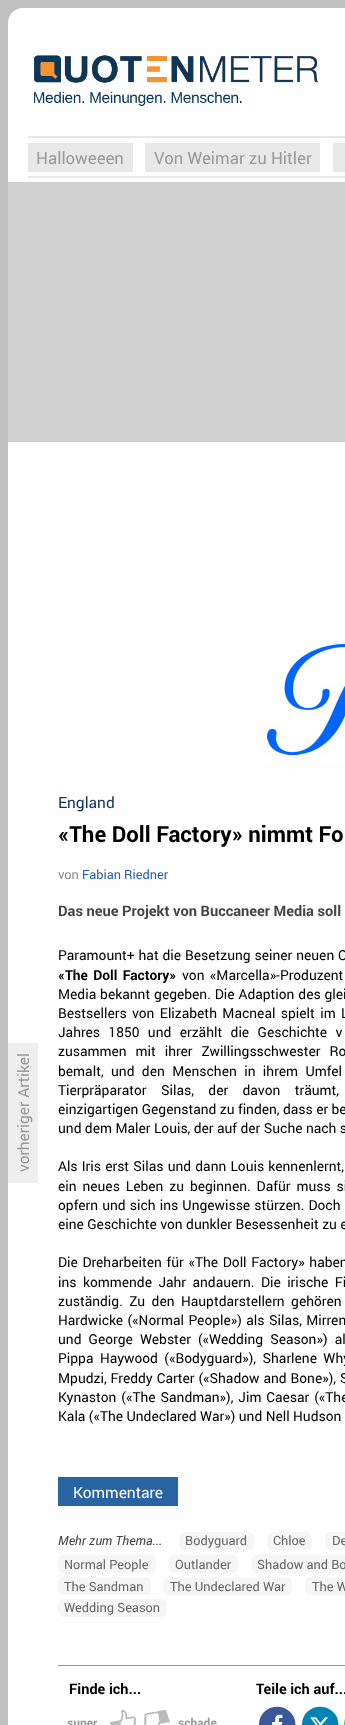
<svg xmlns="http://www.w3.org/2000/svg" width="345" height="1725">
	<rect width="100%" height="100%" fill="#C0C0C0" />
	<rect x="8" y="136" width="337" height="1589" fill="#FEFEFE" />
	<path d="M23 8H345C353.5 8 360 14.5 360 23V136H8V23C8 14.5 14.5 8 23 8Z" fill="#FEFEFE" />
	<image x="34" y="55" width="284" height="51" href="assets/img1.png" />
	<rect x="28" y="136" width="317" height="2" fill="#E8E8E8" />
	<rect x="28" y="176" width="317" height="2" fill="#E8E8E8" />
	<rect x="28" y="143" width="105" height="29" fill="#E8E8E8" />
	<text x="36" y="164" font-family="Roboto" font-size="16.75" fill="#999999">Halloweeen</text>
	<rect x="145" y="143" width="175" height="29" fill="#E8E8E8" />
	<text x="154" y="164" font-family="Roboto" font-size="16.75" fill="#999999">Von Weimar zu Hitler</text>
	<rect x="333" y="143" width="12" height="29" fill="#E8E8E8" />
	<rect x="8" y="182" width="337" height="260" fill="#D0D0D0" />
	<image x="264" y="642" width="81" height="120" href="assets/img2.png" />
	<text x="58" y="808" font-family="Roboto" font-size="15.5" fill="#143254">England</text>
	<text x="58" y="842" font-family="Roboto" font-size="22.25" font-weight="700" fill="#000000">«The Doll Factory» nimmt Fo</text>
	<text x="58" y="879" font-family="Roboto" font-size="12.75" fill="#888888">von</text>
	<text x="82" y="879" font-family="Roboto" font-size="12.75" fill="#2864A2">Fabian Riedner</text>
	<text x="58" y="916" font-family="Roboto" font-size="14.6" font-weight="700" fill="#444444">Das neue Projekt von Buccaneer Media soll</text>
	<rect x="8" y="1043" width="30" height="140" fill="#EEEEEE" />
	<text x="29" y="1172" transform="rotate(-90 29 1172)" font-family="Roboto" font-size="15.5" fill="#999999">vorheriger Artikel</text>
	<text x="58" y="960" word-spacing="0.5" font-family="Roboto" font-size="13.75" fill="#000000">Paramount+ hat die Besetzung seiner neuen O</text>
	<text x="58" y="980" word-spacing="2" font-family="Roboto" font-size="13.75" font-weight="700" fill="#000000">«The Doll Factory»</text>
	<g font-family="Roboto" font-size="13.75" fill="#000000">
		<text x="182" y="980" word-spacing="2">von «Marcella»-Produzent</text>
		<text x="58" y="999" word-spacing="0.5">Media bekannt gegeben. Die Adaption des glei</text>
		<text x="58" y="1018" word-spacing="2">Bestsellers von Elizabeth Macneal spielt im L</text>
		<text x="58" y="1037" word-spacing="5">Jahres 1850 und erzählt die Geschichte v</text>
		<text x="58" y="1056" word-spacing="5.5">zusammen mit ihrer Zwillingsschwester Ro</text>
		<text x="58" y="1076" word-spacing="4">bemalt, und den Menschen in ihrem Umfel</text>
		<text x="58" y="1095" word-spacing="11">Tierpräparator Silas, der davon träumt,</text>
		<text x="58" y="1114">einzigartigen Gegenstand zu finden, dass er be</text>
		<text x="58" y="1133">und dem Maler Louis, der auf der Suche nach s</text>
		<text x="58" y="1171" word-spacing="0.75">Als Iris erst Silas und dann Louis kennenlernt,</text>
		<text x="58" y="1191" word-spacing="2.5">ein neues Leben zu beginnen. Dafür muss si</text>
		<text x="58" y="1210" word-spacing="0.75">opfern und sich ins Ungewisse stürzen. Doch</text>
		<text x="58" y="1229">eine Geschichte von dunkler Besessenheit zu e</text>
		<text x="58" y="1267" word-spacing="1.25">Die Dreharbeiten für «The Doll Factory» haben</text>
		<text x="58" y="1287" word-spacing="3">ins kommende Jahr andauern. Die irische Fi</text>
		<text x="58" y="1306" word-spacing="3">zuständig. Zu den Hauptdarstellern gehören</text>
		<text x="58" y="1325" word-spacing="1">Hardwicke («Normal People») als Silas, Mirren</text>
		<text x="58" y="1344" word-spacing="3.75">und George Webster («Wedding Season») al</text>
		<text x="58" y="1363" word-spacing="3">Pippa Haywood («Bodyguard»), Sharlene Why</text>
		<text x="58" y="1383" word-spacing="0.5">Mpudzi, Freddy Carter («Shadow and Bone»), S</text>
		<text x="58" y="1402" word-spacing="1.5">Kynaston («The Sandman»), Jim Caesar («The</text>
		<text x="58" y="1421">Kala («The Undeclared War») und Nell Hudson</text>
	</g>
	<rect x="58" y="1477" width="120" height="29" fill="#2864A2" />
	<text x="73" y="1498" font-family="Roboto" font-size="15.5" fill="#FFFFFF">Kommentare</text>
	<text x="58" y="1545" font-family="Roboto" font-size="12.75" font-style="italic" fill="#444444">Mehr zum Thema...</text>
	<rect x="179" y="1532" width="75" height="18" rx="6" fill="#F6F6F6" />
	<text x="185" y="1545" font-family="Roboto" font-size="12.75" fill="#666666">Bodyguard</text>
	<rect x="267" y="1532" width="45" height="18" rx="6" fill="#F6F6F6" />
	<text x="273" y="1545" font-family="Roboto" font-size="12.75" fill="#666666">Chloe</text>
	<rect x="325" y="1532" width="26" height="18" rx="6" fill="#F6F6F6" />
	<text x="332" y="1545" font-family="Roboto" font-size="12.75" fill="#666666">De</text>
	<rect x="58" y="1555" width="98" height="18" rx="6" fill="#F6F6F6" />
	<text x="64" y="1569" font-family="Roboto" font-size="12.75" fill="#666666">Normal People</text>
	<rect x="168" y="1555" width="70" height="18" rx="6" fill="#F6F6F6" />
	<text x="175" y="1569" font-family="Roboto" font-size="12.75" fill="#666666">Outlander</text>
	<rect x="251" y="1555" width="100" height="18" rx="6" fill="#F6F6F6" />
	<text x="257" y="1569" font-family="Roboto" font-size="12.75" fill="#666666">Shadow and Bo</text>
	<rect x="58" y="1577" width="93" height="18" rx="6" fill="#F6F6F6" />
	<text x="64" y="1591" font-family="Roboto" font-size="12.75" fill="#666666">The Sandman</text>
	<rect x="163" y="1577" width="129" height="18" rx="6" fill="#F6F6F6" />
	<text x="170" y="1591" font-family="Roboto" font-size="12.75" fill="#666666">The Undeclared War</text>
	<rect x="305" y="1577" width="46" height="18" rx="6" fill="#F6F6F6" />
	<text x="312" y="1591" font-family="Roboto" font-size="12.75" fill="#666666">The W</text>
	<rect x="58" y="1599" width="109" height="18" rx="6" fill="#F6F6F6" />
	<text x="64" y="1612" font-family="Roboto" font-size="12.75" fill="#666666">Wedding Season</text>
	<rect x="58" y="1665" width="287" height="1" fill="#999999" />
	<text x="69" y="1694" font-family="Roboto" font-size="14.5" font-weight="700" fill="#000000">Finde ich...</text>
	<text x="67" y="1727" font-family="Roboto" font-size="12" font-weight="700" fill="#999999">super</text>
	<rect x="110" y="1709" width="26" height="16" fill="#BBBBBB" />
	<image x="110" y="1709" width="26" height="16" href="assets/img3.png" />
	<rect x="144" y="1709" width="26" height="16" fill="#BBBBBB" />
	<image x="144" y="1709" width="26" height="16" href="assets/img4.png" />
	<text x="178" y="1727" font-family="Roboto" font-size="12" font-weight="700" fill="#999999">schade</text>
	<text x="256" y="1694" font-family="Roboto" font-size="14.5" font-weight="700" fill="#000000">Teile ich auf...</text>
	<path d="M293 1715.5C295 1719 295.5 1722.5 295.5 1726C294.5 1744 270.5 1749.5 261.5 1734C259.5 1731 259 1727 259 1723.5C260 1705.5 284 1700.5 293 1715.5Z" fill="#3B5998" />
	<image x="272" y="1714" width="11" height="11" href="assets/img5.png" />
	<path d="M336 1715.5C338 1719 338.5 1722.5 338.5 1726C337.5 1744 313.5 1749.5 304.5 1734C302.5 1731 302 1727 302 1723.5C303 1705.5 327 1700.5 336 1715.5Z" fill="#0084B4" />
	<image x="310" y="1717" width="18" height="8" href="assets/img6.png" />
	<image x="344" y="1719" width="1" height="6" href="assets/img7.png" />
</svg>
